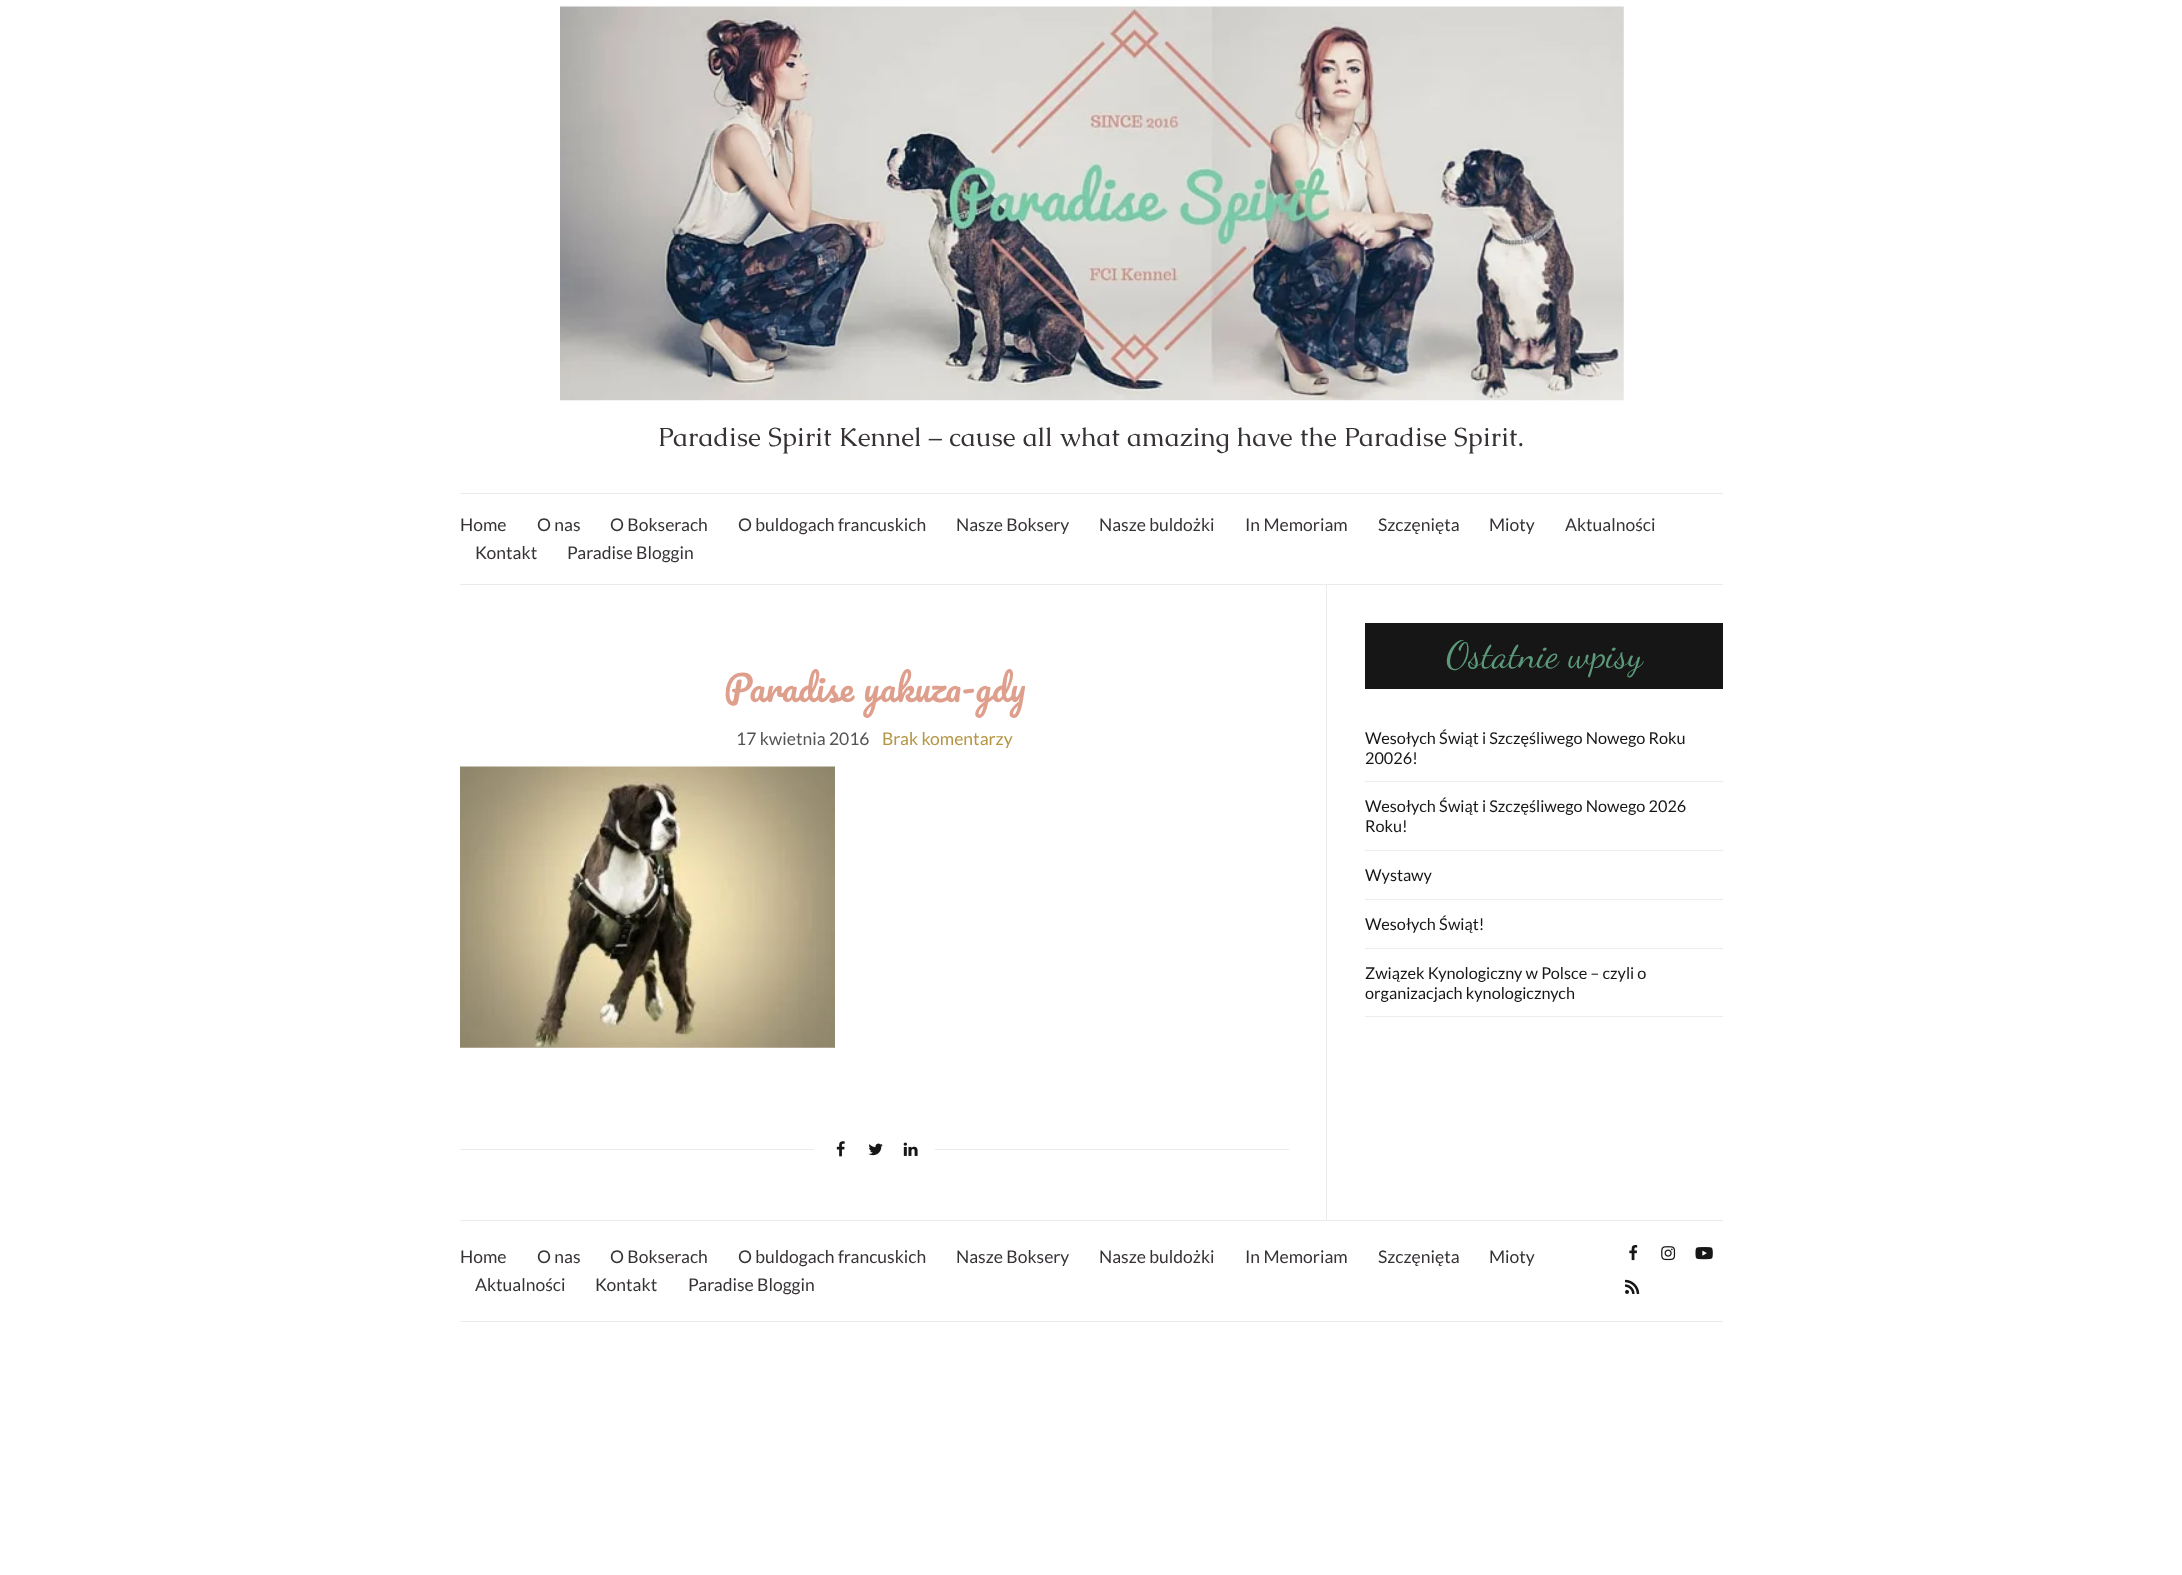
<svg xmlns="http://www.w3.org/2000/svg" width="2182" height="1575">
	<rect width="100%" height="100%" fill="#FFFFFF" />
	<image x="560" y="6" width="1064" height="395" href="assets/img1.png" />
	<text x="658" y="446" font-family="Caudex" font-size="26.25" fill="#363236">Paradise Spirit Kennel – cause all what amazing have the Paradise Spirit.</text>
	<rect x="460" y="493" width="1263" height="1" fill="#EBEBEB" />
	<rect x="460" y="584" width="1263" height="1" fill="#EBEBEB" />
	<g font-family="Lato" font-size="17.5" fill="#363236">
		<text x="460" y="531">Home</text>
		<text x="537" y="531">O nas</text>
		<text x="610" y="531">O Bokserach</text>
		<text x="738" y="531">O buldogach francuskich</text>
		<text x="956" y="531">Nasze Boksery</text>
		<text x="1099" y="531">Nasze buldożki</text>
		<text x="1245" y="531">In Memoriam</text>
		<text x="1378" y="531">Szczęnięta</text>
		<text x="1489" y="531">Mioty</text>
		<text x="1565" y="531">Aktualności</text>
		<text x="475" y="559">Kontakt</text>
		<text x="567" y="559">Paradise Bloggin</text>
	</g>
	<text x="724" y="702" font-family="Pacifico" font-size="35" fill="#DE9F8D">Paradise yakuza-gdy</text>
	<text x="736" y="745" font-family="Lato" font-size="17.5" fill="#545454">17 kwietnia 2016</text>
	<text x="882" y="745" font-family="Lato" font-size="17.5" fill="#B49543">Brak komentarzy</text>
	<image x="460" y="766" width="375" height="282" href="assets/img2.png" />
	<rect x="460" y="1149" width="829" height="1" fill="#EBEBEB" />
	<rect x="814" y="1149" width="121" height="1" fill="#FFFFFF" />
	<image x="836" y="1141" width="9" height="16" href="assets/img3.png" />
	<image x="868" y="1143" width="15" height="13" href="assets/img4.png" />
	<image x="903" y="1142" width="15" height="14" href="assets/img5.png" />
	<rect x="1326" y="585" width="1" height="635" fill="#EBEBEB" />
	<rect x="1365" y="623" width="358" height="66" fill="#161616" />
	<text x="1446" y="667" font-family="Dancing Script" font-size="37.5" fill="#5C997A">Ostatnie wpisy</text>
	<rect x="1365" y="781" width="358" height="1" fill="#ECECEC" />
	<g font-family="Lato" font-size="16.25" fill="#161616">
		<text x="1365" y="744">Wesołych Świąt i Szczęśliwego Nowego Roku</text>
		<text x="1365" y="764">20026!</text>
	</g>
	<rect x="1365" y="850" width="358" height="1" fill="#ECECEC" />
	<g font-family="Lato" font-size="16.25" fill="#161616">
		<text x="1365" y="812">Wesołych Świąt i Szczęśliwego Nowego 2026</text>
		<text x="1365" y="832">Roku!</text>
	</g>
	<rect x="1365" y="899" width="358" height="1" fill="#ECECEC" />
	<text x="1365" y="881" font-family="Lato" font-size="16.25" fill="#161616">Wystawy</text>
	<rect x="1365" y="948" width="358" height="1" fill="#ECECEC" />
	<text x="1365" y="930" font-family="Lato" font-size="16.25" fill="#161616">Wesołych Świąt!</text>
	<rect x="1365" y="1016" width="358" height="1" fill="#ECECEC" />
	<g font-family="Lato" font-size="16.25" fill="#161616">
		<text x="1365" y="979">Związek Kynologiczny w Polsce – czyli o</text>
		<text x="1365" y="999">organizacjach kynologicznych</text>
	</g>
	<rect x="460" y="1220" width="1263" height="1" fill="#EBEBEB" />
	<rect x="460" y="1321" width="1263" height="1" fill="#EBEBEB" />
	<g font-family="Lato" font-size="17.5" fill="#363236">
		<text x="460" y="1263">Home</text>
		<text x="537" y="1263">O nas</text>
		<text x="610" y="1263">O Bokserach</text>
		<text x="738" y="1263">O buldogach francuskich</text>
		<text x="956" y="1263">Nasze Boksery</text>
		<text x="1099" y="1263">Nasze buldożki</text>
		<text x="1245" y="1263">In Memoriam</text>
		<text x="1378" y="1263">Szczęnięta</text>
		<text x="1489" y="1263">Mioty</text>
		<text x="475" y="1291">Aktualności</text>
		<text x="595" y="1291">Kontakt</text>
		<text x="688" y="1291">Paradise Bloggin</text>
	</g>
	<image x="1629" y="1245" width="9" height="16" href="assets/img6.png" />
	<image x="1661" y="1246" width="15" height="15" href="assets/img7.png" />
	<image x="1695" y="1247" width="18" height="13" href="assets/img8.png" />
	<image x="1625" y="1279" width="15" height="15" href="assets/img9.png" />
</svg>
